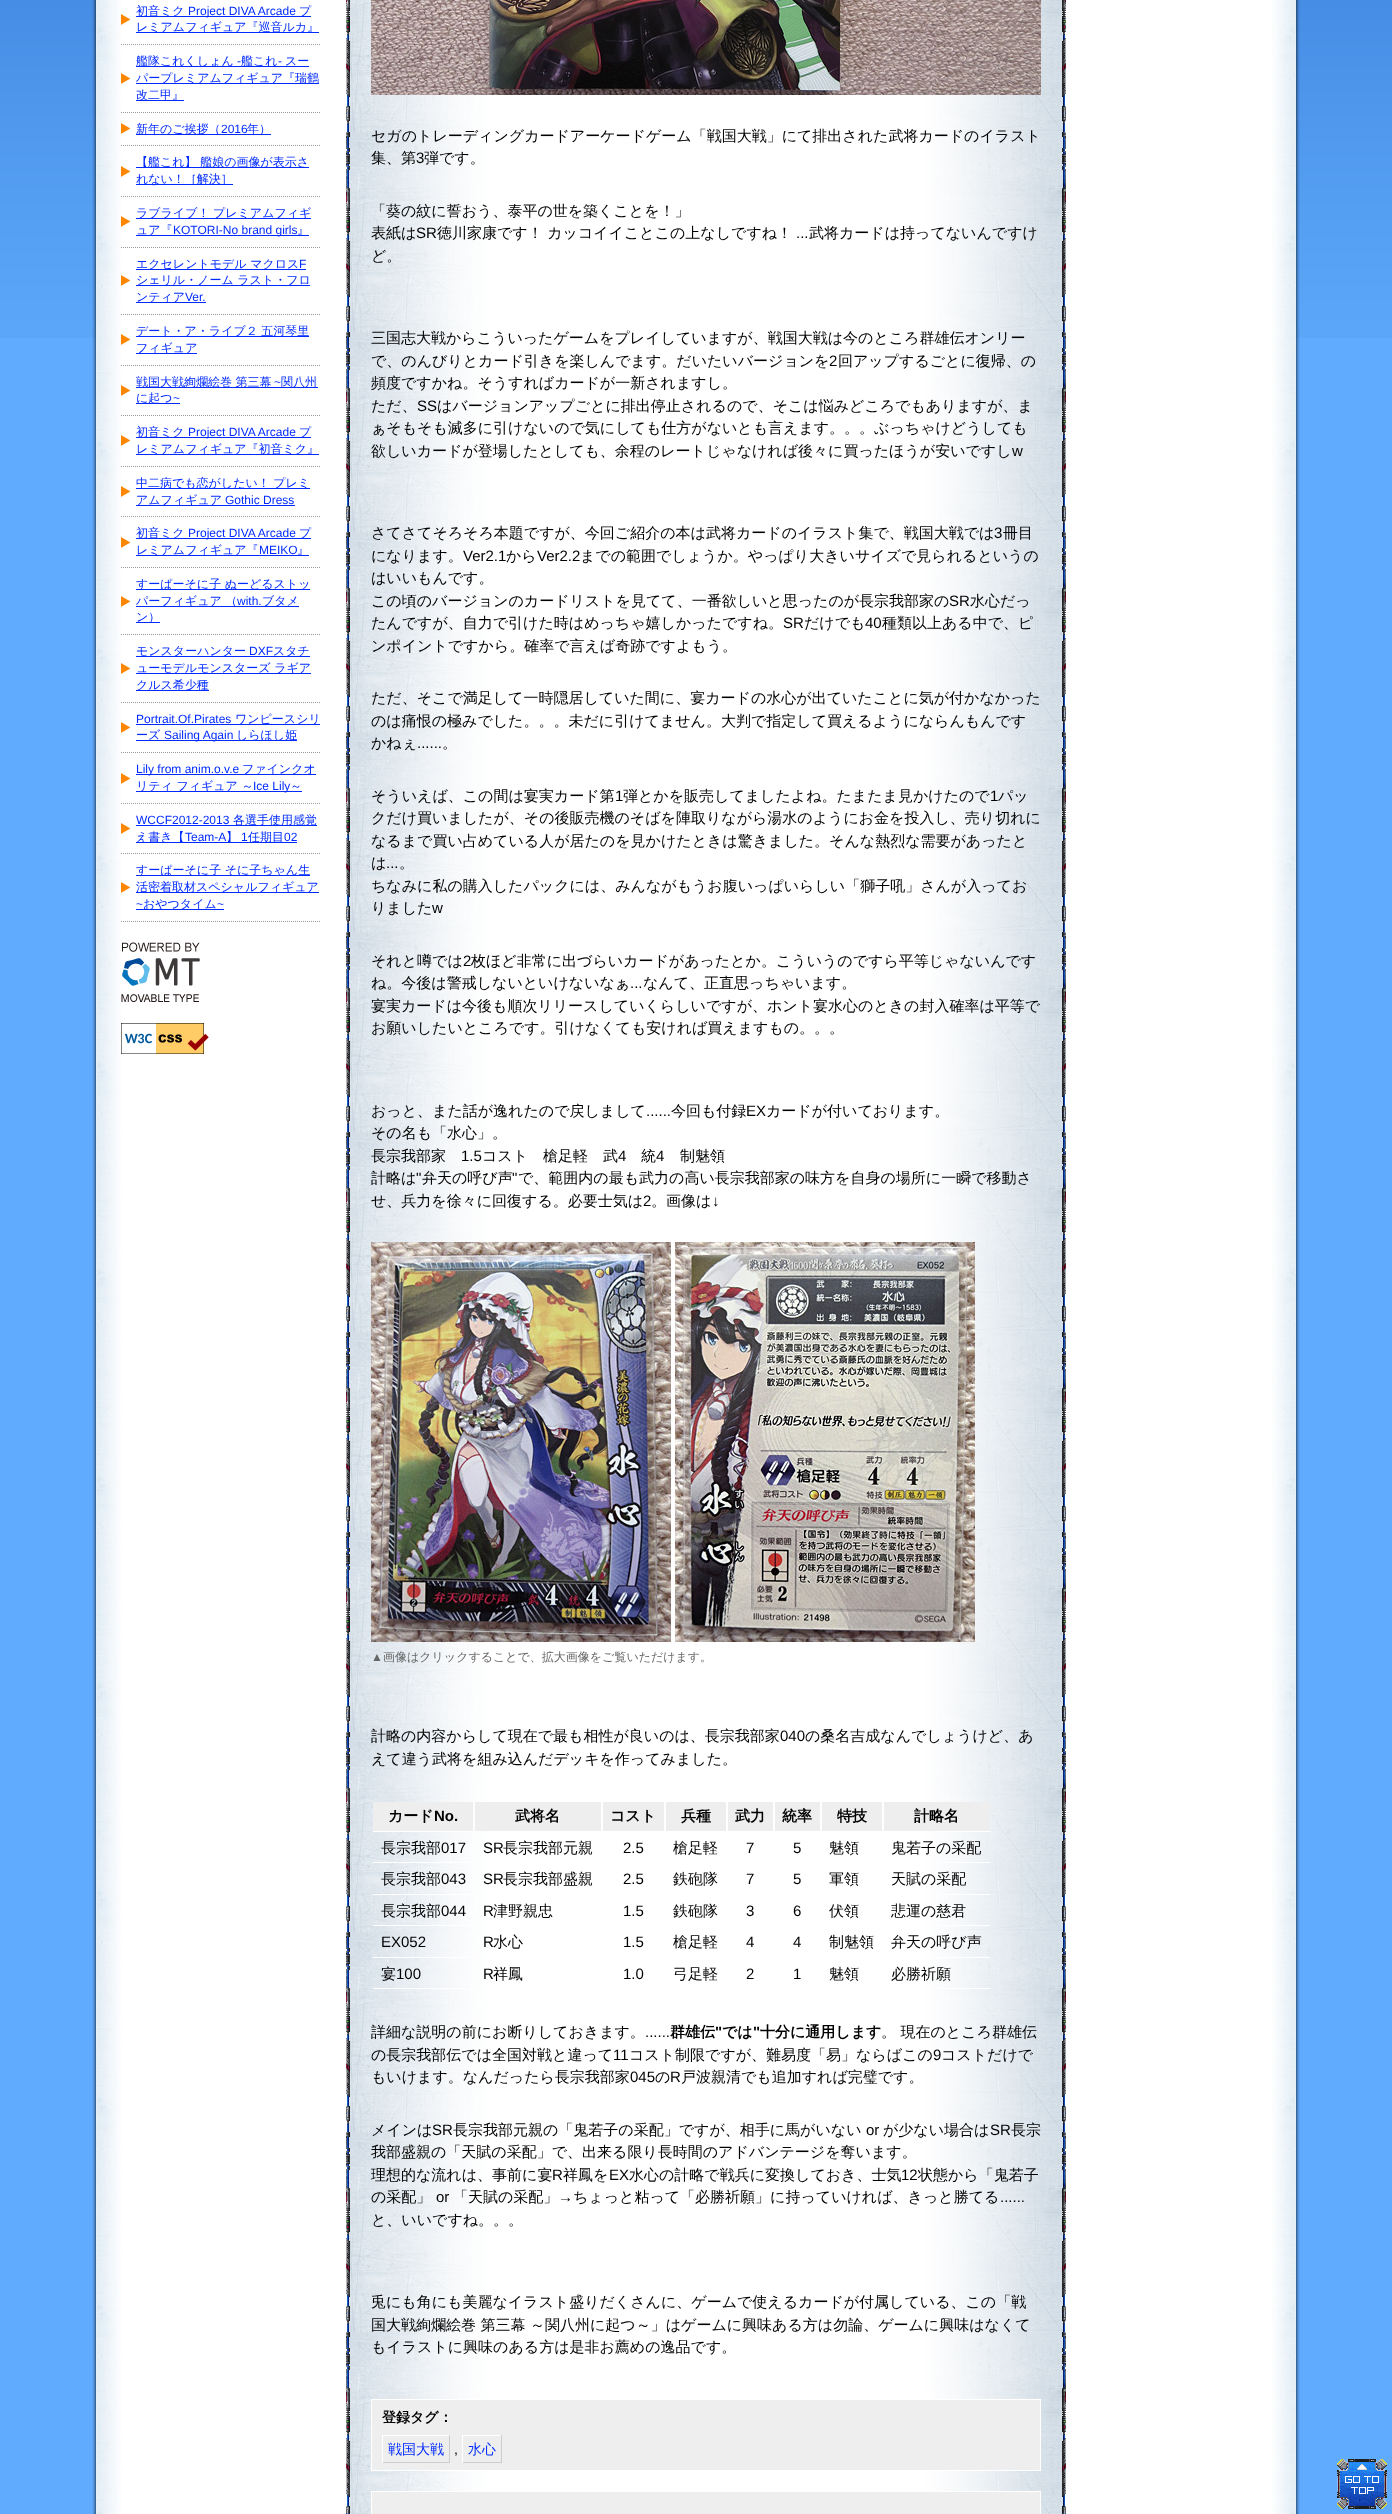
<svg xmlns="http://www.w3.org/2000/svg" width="1392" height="2514">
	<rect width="100%" height="100%" fill="#60ABFD" />
	<image x="0" y="0" width="1392" height="338" href="assets/img1.png" />
	<image x="92" y="0" width="1208" height="2514" href="assets/img2.png" />
	<image x="121" y="14" width="9" height="11" href="assets/img3.png" />
	<path d="M121 44.5H321" fill="none" stroke="#999999" stroke-dasharray="1 1" />
	<rect x="136" y="16" width="175" height="1" fill="#002AFF" />
	<text x="136" y="15" font-family="WenQuanYi Zen Hei" font-size="12" font-weight="500" fill="#002AFF">初音ミク</text>
	<text x="188" y="15" font-family="Liberation Sans" font-size="12" fill="#002AFF">Project DIVA Arcade</text>
	<text x="299" y="15" font-family="WenQuanYi Zen Hei" font-size="12" font-weight="500" fill="#002AFF">プ</text>
	<rect x="136" y="32" width="183" height="1" fill="#002AFF" />
	<text x="136" y="31" font-family="WenQuanYi Zen Hei" font-size="12" font-weight="500" fill="#002AFF">レミアムフィギュア『巡音ルカ』</text>
	<image x="121" y="73" width="9" height="11" href="assets/img3.png" />
	<path d="M121 112.5H321" fill="none" stroke="#999999" stroke-dasharray="1 1" />
	<rect x="136" y="66" width="173" height="1" fill="#002AFF" />
	<text x="136" y="65" font-family="WenQuanYi Zen Hei" font-size="12" font-weight="500" fill="#002AFF">艦隊これくしょん</text>
	<text x="237" y="65" font-family="Liberation Sans" font-size="12" fill="#002AFF">-</text>
	<text x="241" y="65" font-family="WenQuanYi Zen Hei" font-size="12" font-weight="500" fill="#002AFF">艦これ</text>
	<text x="278" y="65" font-family="Liberation Sans" font-size="12" fill="#002AFF">-</text>
	<text x="285" y="65" font-family="WenQuanYi Zen Hei" font-size="12" font-weight="500" fill="#002AFF">スー</text>
	<rect x="136" y="83" width="183" height="1" fill="#002AFF" />
	<text x="136" y="82" font-family="WenQuanYi Zen Hei" font-size="12" font-weight="500" fill="#002AFF">パープレミアムフィギュア『瑞鶴</text>
	<rect x="136" y="100" width="48" height="1" fill="#002AFF" />
	<text x="136" y="99" font-family="WenQuanYi Zen Hei" font-size="12" font-weight="500" fill="#002AFF">改二甲』</text>
	<image x="121" y="123" width="9" height="11" href="assets/img3.png" />
	<path d="M121 145.5H321" fill="none" stroke="#999999" stroke-dasharray="1 1" />
	<rect x="136" y="134" width="135" height="1" fill="#002AFF" />
	<text x="136" y="133" font-family="WenQuanYi Zen Hei" font-size="12" font-weight="500" fill="#002AFF">新年のご挨拶（</text>
	<text x="221" y="133" font-family="Liberation Sans" font-size="12" fill="#002AFF">2016</text>
	<text x="247" y="133" font-family="WenQuanYi Zen Hei" font-size="12" font-weight="500" fill="#002AFF">年）</text>
	<image x="121" y="166" width="9" height="11" href="assets/img3.png" />
	<path d="M121 196.5H321" fill="none" stroke="#999999" stroke-dasharray="1 1" />
	<rect x="136" y="167" width="173" height="1" fill="#002AFF" />
	<text x="136" y="166" font-family="WenQuanYi Zen Hei" font-size="12" font-weight="500" fill="#002AFF">【艦これ】 艦娘の画像が表示さ</text>
	<rect x="136" y="184" width="97" height="1" fill="#002AFF" />
	<text x="136" y="183" font-family="WenQuanYi Zen Hei" font-size="12" font-weight="500" fill="#002AFF">れない！［解決］</text>
	<image x="121" y="216" width="9" height="11" href="assets/img3.png" />
	<path d="M121 247.5H321" fill="none" stroke="#999999" stroke-dasharray="1 1" />
	<rect x="136" y="218" width="175" height="1" fill="#002AFF" />
	<g font-family="WenQuanYi Zen Hei" font-size="12" font-weight="500" fill="#002AFF">
		<text x="136" y="217">ラブライブ！ プレミアムフィギ</text>
		<text x="136" y="234">ュア『</text>
	</g>
	<rect x="136" y="235" width="173" height="1" fill="#002AFF" />
	<text x="173" y="234" font-family="Liberation Sans" font-size="12" fill="#002AFF">KOTORI‐No brand girls</text>
	<text x="297" y="234" font-family="WenQuanYi Zen Hei" font-size="12" font-weight="500" fill="#002AFF">』</text>
	<image x="121" y="275" width="9" height="11" href="assets/img3.png" />
	<path d="M121 314.5H321" fill="none" stroke="#999999" stroke-dasharray="1 1" />
	<rect x="136" y="269" width="170" height="1" fill="#002AFF" />
	<text x="136" y="268" font-family="WenQuanYi Zen Hei" font-size="12" font-weight="500" fill="#002AFF">エクセレントモデル マクロス</text>
	<text x="299" y="268" font-family="Liberation Sans" font-size="12" fill="#002AFF">F</text>
	<rect x="136" y="285" width="174" height="1" fill="#002AFF" />
	<text x="136" y="284" font-family="WenQuanYi Zen Hei" font-size="12" font-weight="500" fill="#002AFF">シェリル・ノーム ラスト・フロ</text>
	<rect x="136" y="302" width="70" height="1" fill="#002AFF" />
	<text x="136" y="301" font-family="WenQuanYi Zen Hei" font-size="12" font-weight="500" fill="#002AFF">ンティア</text>
	<text x="185" y="301" font-family="Liberation Sans" font-size="12" fill="#002AFF">Ver.</text>
	<image x="121" y="334" width="9" height="11" href="assets/img3.png" />
	<path d="M121 365.5H321" fill="none" stroke="#999999" stroke-dasharray="1 1" />
	<rect x="136" y="336" width="173" height="1" fill="#002AFF" />
	<text x="136" y="335" font-family="WenQuanYi Zen Hei" font-size="12" font-weight="500" fill="#002AFF">デート・ア・ライブ２ 五河琴里</text>
	<rect x="136" y="353" width="61" height="1" fill="#002AFF" />
	<text x="136" y="352" font-family="WenQuanYi Zen Hei" font-size="12" font-weight="500" fill="#002AFF">フィギュア</text>
	<image x="121" y="385" width="9" height="11" href="assets/img3.png" />
	<path d="M121 415.5H321" fill="none" stroke="#999999" stroke-dasharray="1 1" />
	<rect x="136" y="387" width="182" height="1" fill="#002AFF" />
	<text x="136" y="386" font-family="WenQuanYi Zen Hei" font-size="12" font-weight="500" fill="#002AFF">戦国大戦絢爛絵巻 第三幕</text>
	<text x="274" y="386" font-family="Liberation Sans" font-size="12" fill="#002AFF">~</text>
	<text x="281" y="386" font-family="WenQuanYi Zen Hei" font-size="12" font-weight="500" fill="#002AFF">関八州</text>
	<rect x="136" y="403" width="44" height="1" fill="#002AFF" />
	<text x="136" y="402" font-family="WenQuanYi Zen Hei" font-size="12" font-weight="500" fill="#002AFF">に起つ</text>
	<text x="173" y="402" font-family="Liberation Sans" font-size="12" fill="#002AFF">~</text>
	<image x="121" y="435" width="9" height="11" href="assets/img3.png" />
	<path d="M121 466.5H321" fill="none" stroke="#999999" stroke-dasharray="1 1" />
	<rect x="136" y="437" width="175" height="1" fill="#002AFF" />
	<text x="136" y="436" font-family="WenQuanYi Zen Hei" font-size="12" font-weight="500" fill="#002AFF">初音ミク</text>
	<text x="188" y="436" font-family="Liberation Sans" font-size="12" fill="#002AFF">Project DIVA Arcade</text>
	<text x="299" y="436" font-family="WenQuanYi Zen Hei" font-size="12" font-weight="500" fill="#002AFF">プ</text>
	<rect x="136" y="454" width="183" height="1" fill="#002AFF" />
	<text x="136" y="453" font-family="WenQuanYi Zen Hei" font-size="12" font-weight="500" fill="#002AFF">レミアムフィギュア『初音ミク』</text>
	<image x="121" y="486" width="9" height="11" href="assets/img3.png" />
	<path d="M121 516.5H321" fill="none" stroke="#999999" stroke-dasharray="1 1" />
	<rect x="136" y="488" width="174" height="1" fill="#002AFF" />
	<text x="136" y="487" font-family="WenQuanYi Zen Hei" font-size="12" font-weight="500" fill="#002AFF">中二病でも恋がしたい！ プレミ</text>
	<rect x="136" y="505" width="159" height="1" fill="#002AFF" />
	<text x="136" y="504" font-family="WenQuanYi Zen Hei" font-size="12" font-weight="500" fill="#002AFF">アムフィギュア</text>
	<text x="225" y="504" font-family="Liberation Sans" font-size="12" fill="#002AFF">Gothic Dress</text>
	<image x="121" y="537" width="9" height="11" href="assets/img3.png" />
	<path d="M121 567.5H321" fill="none" stroke="#999999" stroke-dasharray="1 1" />
	<rect x="136" y="538" width="175" height="1" fill="#002AFF" />
	<text x="136" y="537" font-family="WenQuanYi Zen Hei" font-size="12" font-weight="500" fill="#002AFF">初音ミク</text>
	<text x="188" y="537" font-family="Liberation Sans" font-size="12" fill="#002AFF">Project DIVA Arcade</text>
	<text x="299" y="537" font-family="WenQuanYi Zen Hei" font-size="12" font-weight="500" fill="#002AFF">プ</text>
	<rect x="136" y="555" width="173" height="1" fill="#002AFF" />
	<text x="136" y="554" font-family="WenQuanYi Zen Hei" font-size="12" font-weight="500" fill="#002AFF">レミアムフィギュア『</text>
	<text x="259" y="554" font-family="Liberation Sans" font-size="12" fill="#002AFF">MEIKO</text>
	<text x="297" y="554" font-family="WenQuanYi Zen Hei" font-size="12" font-weight="500" fill="#002AFF">』</text>
	<image x="121" y="596" width="9" height="11" href="assets/img3.png" />
	<path d="M121 634.5H321" fill="none" stroke="#999999" stroke-dasharray="1 1" />
	<rect x="136" y="589" width="174" height="1" fill="#002AFF" />
	<text x="136" y="588" font-family="WenQuanYi Zen Hei" font-size="12" font-weight="500" fill="#002AFF">すーぱーそに子 ぬーどるストッ</text>
	<rect x="136" y="606" width="163" height="1" fill="#002AFF" />
	<text x="136" y="605" font-family="WenQuanYi Zen Hei" font-size="12" font-weight="500" fill="#002AFF">パーフィギュア （</text>
	<text x="237" y="605" font-family="Liberation Sans" font-size="12" fill="#002AFF">with.</text>
	<text x="262" y="605" font-family="WenQuanYi Zen Hei" font-size="12" font-weight="500" fill="#002AFF">ブタメ</text>
	<rect x="136" y="622" width="24" height="1" fill="#002AFF" />
	<text x="136" y="621" font-family="WenQuanYi Zen Hei" font-size="12" font-weight="500" fill="#002AFF">ン）</text>
	<image x="121" y="663" width="9" height="11" href="assets/img3.png" />
	<path d="M121 702.5H321" fill="none" stroke="#999999" stroke-dasharray="1 1" />
	<rect x="136" y="656" width="174" height="1" fill="#002AFF" />
	<text x="136" y="655" font-family="WenQuanYi Zen Hei" font-size="12" font-weight="500" fill="#002AFF">モンスターハンター</text>
	<text x="249" y="655" font-family="Liberation Sans" font-size="12" fill="#002AFF">DXF</text>
	<text x="273" y="655" font-family="WenQuanYi Zen Hei" font-size="12" font-weight="500" fill="#002AFF">スタチ</text>
	<rect x="136" y="673" width="175" height="1" fill="#002AFF" />
	<text x="136" y="672" font-family="WenQuanYi Zen Hei" font-size="12" font-weight="500" fill="#002AFF">ューモデルモンスターズ ラギア</text>
	<rect x="136" y="690" width="73" height="1" fill="#002AFF" />
	<text x="136" y="689" font-family="WenQuanYi Zen Hei" font-size="12" font-weight="500" fill="#002AFF">クルス希少種</text>
	<image x="121" y="722" width="9" height="11" href="assets/img3.png" />
	<path d="M121 752.5H321" fill="none" stroke="#999999" stroke-dasharray="1 1" />
	<text x="136" y="723" font-family="Liberation Sans" font-size="12" fill="#002AFF">Portrait.Of.Pirates</text>
	<rect x="136" y="724" width="184" height="1" fill="#002AFF" />
	<g font-family="WenQuanYi Zen Hei" font-size="12" font-weight="500" fill="#002AFF">
		<text x="235" y="723">ワンピースシリ</text>
		<text x="136" y="739">ーズ</text>
	</g>
	<rect x="136" y="740" width="161" height="1" fill="#002AFF" />
	<text x="164" y="739" font-family="Liberation Sans" font-size="12" fill="#002AFF">Sailing Again</text>
	<text x="236" y="739" font-family="WenQuanYi Zen Hei" font-size="12" font-weight="500" fill="#002AFF">しらほし姫</text>
	<image x="121" y="773" width="9" height="11" href="assets/img3.png" />
	<path d="M121 803.5H321" fill="none" stroke="#999999" stroke-dasharray="1 1" />
	<rect x="136" y="774" width="180" height="1" fill="#002AFF" />
	<text x="136" y="773" font-family="Liberation Sans" font-size="12" fill="#002AFF">Lily from anim.o.v.e</text>
	<text x="242" y="773" font-family="WenQuanYi Zen Hei" font-size="12" font-weight="500" fill="#002AFF">ファインクオ</text>
	<rect x="136" y="791" width="166" height="1" fill="#002AFF" />
	<text x="136" y="790" font-family="WenQuanYi Zen Hei" font-size="12" font-weight="500" fill="#002AFF">リティ フィギュア ～</text>
	<text x="253" y="790" font-family="Liberation Sans" font-size="12" fill="#002AFF">Ice Lily</text>
	<text x="290" y="790" font-family="WenQuanYi Zen Hei" font-size="12" font-weight="500" fill="#002AFF">～</text>
	<image x="121" y="823" width="9" height="11" href="assets/img3.png" />
	<path d="M121 853.5H321" fill="none" stroke="#999999" stroke-dasharray="1 1" />
	<text x="136" y="824" font-family="Liberation Sans" font-size="12" fill="#002AFF">WCCF2012-2013</text>
	<rect x="136" y="825" width="181" height="1" fill="#002AFF" />
	<text x="233" y="824" font-family="WenQuanYi Zen Hei" font-size="12" font-weight="500" fill="#002AFF">各選手使用感覚</text>
	<rect x="136" y="842" width="161" height="1" fill="#002AFF" />
	<text x="136" y="841" font-family="WenQuanYi Zen Hei" font-size="12" font-weight="500" fill="#002AFF">え書き【</text>
	<text x="185" y="841" font-family="Liberation Sans" font-size="12" fill="#002AFF">Team-A</text>
	<text x="226" y="841" font-family="WenQuanYi Zen Hei" font-size="12" font-weight="500" fill="#002AFF">】</text>
	<text x="241" y="841" font-family="Liberation Sans" font-size="12" fill="#002AFF">1</text>
	<text x="248" y="841" font-family="WenQuanYi Zen Hei" font-size="12" font-weight="500" fill="#002AFF">任期目</text>
	<text x="284" y="841" font-family="Liberation Sans" font-size="12" fill="#002AFF">02</text>
	<image x="121" y="882" width="9" height="11" href="assets/img3.png" />
	<path d="M121 921.5H321" fill="none" stroke="#999999" stroke-dasharray="1 1" />
	<rect x="136" y="875" width="174" height="1" fill="#002AFF" />
	<text x="136" y="874" font-family="WenQuanYi Zen Hei" font-size="12" font-weight="500" fill="#002AFF">すーぱーそに子 そに子ちゃん生</text>
	<rect x="136" y="892" width="183" height="1" fill="#002AFF" />
	<text x="136" y="891" font-family="WenQuanYi Zen Hei" font-size="12" font-weight="500" fill="#002AFF">活密着取材スペシャルフィギュア</text>
	<text x="136" y="908" font-family="Liberation Sans" font-size="12" fill="#002AFF">~</text>
	<rect x="136" y="909" width="88" height="1" fill="#002AFF" />
	<text x="143" y="908" font-family="WenQuanYi Zen Hei" font-size="12" font-weight="500" fill="#002AFF">おやつタイム</text>
	<text x="217" y="908" font-family="Liberation Sans" font-size="12" fill="#002AFF">~</text>
	<image x="121" y="942" width="79" height="60" href="assets/img4.png" />
	<image x="121" y="1023" width="88" height="31" href="assets/img5.png" />
	<image x="346" y="0" width="720" height="2514" href="assets/img6.png" />
	<image x="371" y="0" width="670" height="95" href="assets/img7.png" />
	<g font-family="WenQuanYi Zen Hei" font-size="15" font-weight="500" fill="#000000">
		<text x="371" y="141">セガのトレーディングカードアーケードゲーム「戦国大戦」にて排出された武将カードのイラスト</text>
		<text x="371" y="163">集、第</text>
	</g>
	<text x="416" y="163" font-family="Liberation Sans" font-size="15" fill="#000000">3</text>
	<g font-family="WenQuanYi Zen Hei" font-size="15" font-weight="500" fill="#000000">
		<text x="424" y="163">弾です。</text>
		<text x="371" y="216">「葵の紋に誓おう、泰平の世を築くことを！」</text>
		<text x="371" y="238">表紙は</text>
	</g>
	<text x="416" y="238" font-family="Liberation Sans" font-size="15" fill="#000000">SR</text>
	<text x="437" y="238" font-family="WenQuanYi Zen Hei" font-size="15" font-weight="500" fill="#000000">徳川家康です！ カッコイイことこの上なしですね！</text>
	<text x="796" y="238" font-family="Liberation Sans" font-size="15" fill="#000000">...</text>
	<g font-family="WenQuanYi Zen Hei" font-size="15" font-weight="500" fill="#000000">
		<text x="809" y="238">武将カードは持ってないんですけ</text>
		<text x="371" y="261">ど。</text>
		<text x="371" y="343">三国志大戦からこういったゲームをプレイしていますが、戦国大戦は今のところ群雄伝オンリー</text>
		<text x="371" y="366">で、のんびりとカード引きを楽しんでます。だいたいバージョンを</text>
	</g>
	<text x="829" y="366" font-family="Liberation Sans" font-size="15" fill="#000000">2</text>
	<g font-family="WenQuanYi Zen Hei" font-size="15" font-weight="500" fill="#000000">
		<text x="838" y="366">回アップするごとに復帰、の</text>
		<text x="371" y="388">頻度ですかね。そうすればカードが一新されますし。</text>
		<text x="371" y="411">ただ、</text>
	</g>
	<text x="417" y="411" font-family="Liberation Sans" font-size="15" fill="#000000">SS</text>
	<g font-family="WenQuanYi Zen Hei" font-size="15" font-weight="500" fill="#000000">
		<text x="437" y="411">はバージョンアップごとに排出停止されるので、そこは悩みどころでもありますが、ま</text>
		<text x="371" y="433">ぁそもそも滅多に引けないので気にしても仕方がないとも言えます。。。ぶっちゃけどうしても</text>
		<text x="371" y="456">欲しいカードが登場したとしても、余程のレートじゃなければ後々に買ったほうが安いですし</text>
	</g>
	<text x="1012" y="456" font-family="Liberation Sans" font-size="15" fill="#000000">w</text>
	<text x="371" y="538" font-family="WenQuanYi Zen Hei" font-size="15" font-weight="500" fill="#000000">さてさてそろそろ本題ですが、今回ご紹介の本は武将カードのイラスト集で、戦国大戦では</text>
	<text x="994" y="538" font-family="Liberation Sans" font-size="15" fill="#000000">3</text>
	<g font-family="WenQuanYi Zen Hei" font-size="15" font-weight="500" fill="#000000">
		<text x="1003" y="538">冊目</text>
		<text x="371" y="561">になります。</text>
	</g>
	<text x="463" y="561" font-family="Liberation Sans" font-size="15" fill="#000000">Ver2.1</text>
	<text x="506" y="561" font-family="WenQuanYi Zen Hei" font-size="15" font-weight="500" fill="#000000">から</text>
	<text x="537" y="561" font-family="Liberation Sans" font-size="15" fill="#000000">Ver2.2</text>
	<g font-family="WenQuanYi Zen Hei" font-size="15" font-weight="500" fill="#000000">
		<text x="580" y="561">までの範囲でしょうか。やっぱり大きいサイズで見られるというの</text>
		<text x="371" y="583">はいいもんです。</text>
		<text x="371" y="606">この頃のバージョンのカードリストを見てて、一番欲しいと思ったのが長宗我部家の</text>
	</g>
	<text x="949" y="606" font-family="Liberation Sans" font-size="15" fill="#000000">SR</text>
	<g font-family="WenQuanYi Zen Hei" font-size="15" font-weight="500" fill="#000000">
		<text x="970" y="606">水心だっ</text>
		<text x="371" y="628">たんですが、自力で引けた時はめっちゃ嬉しかったですね。</text>
	</g>
	<text x="783" y="628" font-family="Liberation Sans" font-size="15" fill="#000000">SR</text>
	<text x="804" y="628" font-family="WenQuanYi Zen Hei" font-size="15" font-weight="500" fill="#000000">だけでも</text>
	<text x="865" y="628" font-family="Liberation Sans" font-size="15" fill="#000000">40</text>
	<g font-family="WenQuanYi Zen Hei" font-size="15" font-weight="500" fill="#000000">
		<text x="882" y="628">種類以上ある中で、ピ</text>
		<text x="371" y="651">ンポイントですから。確率で言えば奇跡ですよもう。</text>
		<text x="371" y="703">ただ、そこで満足して一時隠居していた間に、宴カードの水心が出ていたことに気が付かなかった</text>
		<text x="371" y="726">のは痛恨の極みでした。。。未だに引けてません。大判で指定して買えるようにならんもんです</text>
		<text x="371" y="748">かねぇ</text>
	</g>
	<text x="417" y="748" font-family="Liberation Sans" font-size="15" fill="#000000">......</text>
	<g font-family="WenQuanYi Zen Hei" font-size="15" font-weight="500" fill="#000000">
		<text x="442" y="748">。</text>
		<text x="371" y="801">そういえば、この間は宴実カード第</text>
	</g>
	<text x="615" y="801" font-family="Liberation Sans" font-size="15" fill="#000000">1</text>
	<text x="623" y="801" font-family="WenQuanYi Zen Hei" font-size="15" font-weight="500" fill="#000000">弾とかを販売してましたよね。たまたま見かけたので</text>
	<text x="990" y="801" font-family="Liberation Sans" font-size="15" fill="#000000">1</text>
	<g font-family="WenQuanYi Zen Hei" font-size="15" font-weight="500" fill="#000000">
		<text x="998" y="801">パッ</text>
		<text x="371" y="823">クだけ買いましたが、その後販売機のそばを陣取りながら湯水のようにお金を投入し、売り切れに</text>
		<text x="371" y="846">なるまで買い占めている人が居たのを見かけたときは驚きました。そんな熱烈な需要があったと</text>
		<text x="371" y="868">は</text>
	</g>
	<text x="386" y="868" font-family="Liberation Sans" font-size="15" fill="#000000">...</text>
	<g font-family="WenQuanYi Zen Hei" font-size="15" font-weight="500" fill="#000000">
		<text x="399" y="868">。</text>
		<text x="371" y="891">ちなみに私の購入したパックには、みんながもうお腹いっぱいらしい「獅子吼」さんが入ってお</text>
		<text x="371" y="913">りました</text>
	</g>
	<text x="432" y="913" font-family="Liberation Sans" font-size="15" fill="#000000">w</text>
	<text x="371" y="966" font-family="WenQuanYi Zen Hei" font-size="15" font-weight="500" fill="#000000">それと噂では</text>
	<text x="463" y="966" font-family="Liberation Sans" font-size="15" fill="#000000">2</text>
	<g font-family="WenQuanYi Zen Hei" font-size="15" font-weight="500" fill="#000000">
		<text x="471" y="966">枚ほど非常に出づらいカードがあったとか。こういうのですら平等じゃないんです</text>
		<text x="371" y="988">ね。今後は警戒しないといけないなぁ</text>
	</g>
	<text x="630" y="988" font-family="Liberation Sans" font-size="15" fill="#000000">...</text>
	<g font-family="WenQuanYi Zen Hei" font-size="15" font-weight="500" fill="#000000">
		<text x="643" y="988">なんて、正直思っちゃいます。</text>
		<text x="371" y="1011">宴実カードは今後も順次リリースしていくらしいですが、ホント宴水心のときの封入確率は平等で</text>
		<text x="371" y="1033">お願いしたいところです。引けなくても安ければ買えますもの。。。</text>
		<text x="371" y="1116">おっと、また話が逸れたので戻しまして</text>
	</g>
	<text x="646" y="1116" font-family="Liberation Sans" font-size="15" fill="#000000">......</text>
	<text x="671" y="1116" font-family="WenQuanYi Zen Hei" font-size="15" font-weight="500" fill="#000000">今回も付録</text>
	<text x="746" y="1116" font-family="Liberation Sans" font-size="15" fill="#000000">EX</text>
	<g font-family="WenQuanYi Zen Hei" font-size="15" font-weight="500" fill="#000000">
		<text x="766" y="1116">カードが付いております。</text>
		<text x="371" y="1138">その名も「水心」。</text>
		<text x="371" y="1161">長宗我部家</text>
	</g>
	<text x="461" y="1161" font-family="Liberation Sans" font-size="15" fill="#000000">1.5</text>
	<text x="482" y="1161" font-family="WenQuanYi Zen Hei" font-size="15" font-weight="500" fill="#000000">コスト　槍足軽　武</text>
	<text x="618" y="1161" font-family="Liberation Sans" font-size="15" fill="#000000">4</text>
	<text x="641" y="1161" font-family="WenQuanYi Zen Hei" font-size="15" font-weight="500" fill="#000000">統</text>
	<text x="656" y="1161" font-family="Liberation Sans" font-size="15" fill="#000000">4</text>
	<g font-family="WenQuanYi Zen Hei" font-size="15" font-weight="500" fill="#000000">
		<text x="680" y="1161">制魅領</text>
		<text x="371" y="1183">計略は</text>
	</g>
	<text x="416" y="1183" font-family="Liberation Sans" font-size="15" fill="#000000">"</text>
	<text x="422" y="1183" font-family="WenQuanYi Zen Hei" font-size="15" font-weight="500" fill="#000000">弁天の呼び声</text>
	<text x="512" y="1183" font-family="Liberation Sans" font-size="15" fill="#000000">"</text>
	<g font-family="WenQuanYi Zen Hei" font-size="15" font-weight="500" fill="#000000">
		<text x="518" y="1183">で、範囲内の最も武力の高い長宗我部家の味方を自身の場所に一瞬で移動さ</text>
		<text x="371" y="1206">せ、兵力を徐々に回復する。必要士気は</text>
	</g>
	<text x="643" y="1206" font-family="Liberation Sans" font-size="15" fill="#000000">2</text>
	<text x="651" y="1206" font-family="WenQuanYi Zen Hei" font-size="15" font-weight="500" fill="#000000">。画像は</text>
	<text x="712" y="1206" font-family="Liberation Sans" font-size="15" fill="#000000">↓</text>
	<image x="371" y="1242" width="300" height="400" href="assets/img8.png" />
	<image x="675" y="1242" width="300" height="400" href="assets/img9.png" />
	<text x="371" y="1661" font-family="Liberation Sans" font-size="12" fill="#666666">▲</text>
	<text x="383" y="1661" font-family="WenQuanYi Zen Hei" font-size="12" font-weight="500" fill="#666666">画像はクリックすることで、拡大画像をご覧いただけます。</text>
	<text x="371" y="1741" font-family="WenQuanYi Zen Hei" font-size="15" font-weight="500" fill="#000000">計略の内容からして現在で最も相性が良いのは、長宗我部家</text>
	<text x="780" y="1741" font-family="Liberation Sans" font-size="15" fill="#000000">040</text>
	<g font-family="WenQuanYi Zen Hei" font-size="15" font-weight="500" fill="#000000">
		<text x="805" y="1741">の桑名吉成なんでしょうけど、あ</text>
		<text x="371" y="1764">えて違う武将を組み込んだデッキを作ってみました。</text>
	</g>
	<rect x="373" y="1802" width="100" height="29" fill="#EEEEEE" />
	<rect x="373" y="1831" width="100" height="1" fill="#FFFFFF" />
	<text x="388" y="1821" font-family="WenQuanYi Zen Hei" font-size="15" font-weight="700" fill="#000000">カード</text>
	<text x="434" y="1821" font-family="Liberation Sans" font-size="15" font-weight="700" fill="#000000">No.</text>
	<rect x="475" y="1802" width="126" height="29" fill="#EEEEEE" />
	<rect x="475" y="1831" width="2" height="1" fill="#FFFFFF" />
	<text x="515" y="1821" font-family="WenQuanYi Zen Hei" font-size="15" font-weight="700" fill="#000000">武将名</text>
	<rect x="603" y="1802" width="61" height="29" fill="#EEEEEE" />
	<text x="610" y="1821" font-family="WenQuanYi Zen Hei" font-size="15" font-weight="700" fill="#000000">コスト</text>
	<rect x="666" y="1802" width="60" height="29" fill="#EEEEEE" />
	<text x="681" y="1821" font-family="WenQuanYi Zen Hei" font-size="15" font-weight="700" fill="#000000">兵種</text>
	<rect x="728" y="1802" width="45" height="29" fill="#EEEEEE" />
	<text x="735" y="1821" font-family="WenQuanYi Zen Hei" font-size="15" font-weight="700" fill="#000000">武力</text>
	<rect x="775" y="1802" width="45" height="29" fill="#EEEEEE" />
	<text x="782" y="1821" font-family="WenQuanYi Zen Hei" font-size="15" font-weight="700" fill="#000000">統率</text>
	<rect x="822" y="1802" width="60" height="29" fill="#EEEEEE" />
	<text x="837" y="1821" font-family="WenQuanYi Zen Hei" font-size="15" font-weight="700" fill="#000000">特技</text>
	<rect x="884" y="1802" width="106" height="29" fill="#EEEEEE" />
	<rect x="936" y="1831" width="54" height="1" fill="#FFFFFF" />
	<text x="914" y="1821" font-family="WenQuanYi Zen Hei" font-size="15" font-weight="700" fill="#000000">計略名</text>
	<rect x="373" y="1862" width="100" height="1" fill="#FFFFFF" />
	<text x="381" y="1853" font-family="WenQuanYi Zen Hei" font-size="15" font-weight="500" fill="#000000">長宗我部</text>
	<text x="441" y="1853" font-family="Liberation Sans" font-size="15" fill="#000000">017</text>
	<rect x="475" y="1862" width="2" height="1" fill="#FFFFFF" />
	<text x="483" y="1853" font-family="Liberation Sans" font-size="15" fill="#000000">SR</text>
	<text x="503" y="1853" font-family="WenQuanYi Zen Hei" font-size="15" font-weight="500" fill="#000000">長宗我部元親</text>
	<text x="623" y="1853" font-family="Liberation Sans" font-size="15" fill="#000000">2.5</text>
	<text x="673" y="1853" font-family="WenQuanYi Zen Hei" font-size="15" font-weight="500" fill="#000000">槍足軽</text>
	<g font-family="Liberation Sans" font-size="15" fill="#000000">
		<text x="746" y="1853">7</text>
		<text x="793" y="1853">5</text>
	</g>
	<text x="829" y="1853" font-family="WenQuanYi Zen Hei" font-size="15" font-weight="500" fill="#000000">魅領</text>
	<rect x="936" y="1862" width="54" height="1" fill="#FFFFFF" />
	<text x="891" y="1853" font-family="WenQuanYi Zen Hei" font-size="15" font-weight="500" fill="#000000">鬼若子の采配</text>
	<rect x="373" y="1894" width="100" height="1" fill="#FFFFFF" />
	<text x="381" y="1884" font-family="WenQuanYi Zen Hei" font-size="15" font-weight="500" fill="#000000">長宗我部</text>
	<g font-family="Liberation Sans" font-size="15" fill="#000000">
		<text x="441" y="1884">043</text>
		<text x="483" y="1884">SR</text>
	</g>
	<text x="503" y="1884" font-family="WenQuanYi Zen Hei" font-size="15" font-weight="500" fill="#000000">長宗我部盛親</text>
	<text x="623" y="1884" font-family="Liberation Sans" font-size="15" fill="#000000">2.5</text>
	<text x="673" y="1884" font-family="WenQuanYi Zen Hei" font-size="15" font-weight="500" fill="#000000">鉄砲隊</text>
	<g font-family="Liberation Sans" font-size="15" fill="#000000">
		<text x="746" y="1884">7</text>
		<text x="793" y="1884">5</text>
	</g>
	<text x="829" y="1884" font-family="WenQuanYi Zen Hei" font-size="15" font-weight="500" fill="#000000">軍領</text>
	<rect x="936" y="1894" width="54" height="1" fill="#FFFFFF" />
	<text x="891" y="1884" font-family="WenQuanYi Zen Hei" font-size="15" font-weight="500" fill="#000000">天賦の采配</text>
	<rect x="373" y="1925" width="100" height="1" fill="#FFFFFF" />
	<text x="381" y="1916" font-family="WenQuanYi Zen Hei" font-size="15" font-weight="500" fill="#000000">長宗我部</text>
	<text x="441" y="1916" font-family="Liberation Sans" font-size="15" fill="#000000">044</text>
	<rect x="475" y="1925" width="2" height="1" fill="#FFFFFF" />
	<text x="483" y="1916" font-family="Liberation Sans" font-size="15" fill="#000000">R</text>
	<text x="493" y="1916" font-family="WenQuanYi Zen Hei" font-size="15" font-weight="500" fill="#000000">津野親忠</text>
	<text x="623" y="1916" font-family="Liberation Sans" font-size="15" fill="#000000">1.5</text>
	<text x="673" y="1916" font-family="WenQuanYi Zen Hei" font-size="15" font-weight="500" fill="#000000">鉄砲隊</text>
	<g font-family="Liberation Sans" font-size="15" fill="#000000">
		<text x="746" y="1916">3</text>
		<text x="793" y="1916">6</text>
	</g>
	<text x="829" y="1916" font-family="WenQuanYi Zen Hei" font-size="15" font-weight="500" fill="#000000">伏領</text>
	<rect x="936" y="1925" width="54" height="1" fill="#FFFFFF" />
	<text x="891" y="1916" font-family="WenQuanYi Zen Hei" font-size="15" font-weight="500" fill="#000000">悲運の慈君</text>
	<rect x="373" y="1957" width="100" height="1" fill="#FFFFFF" />
	<text x="381" y="1947" font-family="Liberation Sans" font-size="15" fill="#000000">EX052</text>
	<rect x="475" y="1957" width="2" height="1" fill="#FFFFFF" />
	<text x="483" y="1947" font-family="Liberation Sans" font-size="15" fill="#000000">R</text>
	<text x="493" y="1947" font-family="WenQuanYi Zen Hei" font-size="15" font-weight="500" fill="#000000">水心</text>
	<text x="623" y="1947" font-family="Liberation Sans" font-size="15" fill="#000000">1.5</text>
	<text x="673" y="1947" font-family="WenQuanYi Zen Hei" font-size="15" font-weight="500" fill="#000000">槍足軽</text>
	<g font-family="Liberation Sans" font-size="15" fill="#000000">
		<text x="746" y="1947">4</text>
		<text x="793" y="1947">4</text>
	</g>
	<text x="829" y="1947" font-family="WenQuanYi Zen Hei" font-size="15" font-weight="500" fill="#000000">制魅領</text>
	<rect x="931" y="1957" width="59" height="1" fill="#FFFFFF" />
	<text x="891" y="1947" font-family="WenQuanYi Zen Hei" font-size="15" font-weight="500" fill="#000000">弁天の呼び声</text>
	<rect x="373" y="1988" width="100" height="1" fill="#FFFFFF" />
	<text x="381" y="1979" font-family="WenQuanYi Zen Hei" font-size="15" font-weight="500" fill="#000000">宴</text>
	<text x="396" y="1979" font-family="Liberation Sans" font-size="15" fill="#000000">100</text>
	<rect x="475" y="1988" width="2" height="1" fill="#FFFFFF" />
	<text x="483" y="1979" font-family="Liberation Sans" font-size="15" fill="#000000">R</text>
	<text x="493" y="1979" font-family="WenQuanYi Zen Hei" font-size="15" font-weight="500" fill="#000000">祥鳳</text>
	<text x="623" y="1979" font-family="Liberation Sans" font-size="15" fill="#000000">1.0</text>
	<text x="673" y="1979" font-family="WenQuanYi Zen Hei" font-size="15" font-weight="500" fill="#000000">弓足軽</text>
	<g font-family="Liberation Sans" font-size="15" fill="#000000">
		<text x="746" y="1979">2</text>
		<text x="793" y="1979">1</text>
	</g>
	<text x="829" y="1979" font-family="WenQuanYi Zen Hei" font-size="15" font-weight="500" fill="#000000">魅領</text>
	<rect x="936" y="1988" width="54" height="1" fill="#FFFFFF" />
	<g font-family="WenQuanYi Zen Hei" font-size="15" font-weight="500" fill="#000000">
		<text x="891" y="1979">必勝祈願</text>
		<text x="371" y="2037">詳細な説明の前にお断りしておきます。</text>
	</g>
	<text x="670" y="2037" font-family="WenQuanYi Zen Hei" font-size="15" font-weight="700" fill="#000000">群雄伝</text>
	<text x="715" y="2037" font-family="Liberation Sans" font-size="15" font-weight="700" fill="#000000">"</text>
	<text x="722" y="2037" font-family="WenQuanYi Zen Hei" font-size="15" font-weight="700" fill="#000000">では</text>
	<text x="753" y="2037" font-family="Liberation Sans" font-size="15" font-weight="700" fill="#000000">"</text>
	<text x="760" y="2037" font-family="WenQuanYi Zen Hei" font-size="15" font-weight="700" fill="#000000">十分に通用します</text>
	<text x="881" y="2037" font-family="WenQuanYi Zen Hei" font-size="15" font-weight="500" fill="#000000">。 現在のところ群雄伝</text>
	<text x="645" y="2037" font-family="Liberation Sans" font-size="15" fill="#000000">......</text>
	<text x="371" y="2060" font-family="WenQuanYi Zen Hei" font-size="15" font-weight="500" fill="#000000">の長宗我部伝では全国対戦と違って</text>
	<text x="613" y="2060" font-family="Liberation Sans" font-size="15" fill="#000000">11</text>
	<text x="629" y="2060" font-family="WenQuanYi Zen Hei" font-size="15" font-weight="500" fill="#000000">コスト制限ですが、難易度「易」ならばこの</text>
	<text x="933" y="2060" font-family="Liberation Sans" font-size="15" fill="#000000">9</text>
	<g font-family="WenQuanYi Zen Hei" font-size="15" font-weight="500" fill="#000000">
		<text x="941" y="2060">コストだけで</text>
		<text x="371" y="2082">もいけます。なんだったら長宗我部家</text>
	</g>
	<text x="630" y="2082" font-family="Liberation Sans" font-size="15" fill="#000000">045</text>
	<text x="655" y="2082" font-family="WenQuanYi Zen Hei" font-size="15" font-weight="500" fill="#000000">の</text>
	<text x="670" y="2082" font-family="Liberation Sans" font-size="15" fill="#000000">R</text>
	<g font-family="WenQuanYi Zen Hei" font-size="15" font-weight="500" fill="#000000">
		<text x="681" y="2082">戸波親清でも追加すれば完璧です。</text>
		<text x="371" y="2135">メインは</text>
	</g>
	<text x="432" y="2135" font-family="Liberation Sans" font-size="15" fill="#000000">SR</text>
	<text x="453" y="2135" font-family="WenQuanYi Zen Hei" font-size="15" font-weight="500" fill="#000000">長宗我部元親の「鬼若子の采配」ですが、相手に馬がいない</text>
	<text x="866" y="2135" font-family="Liberation Sans" font-size="15" fill="#000000">or</text>
	<text x="883" y="2135" font-family="WenQuanYi Zen Hei" font-size="15" font-weight="500" fill="#000000">が少ない場合は</text>
	<text x="990" y="2135" font-family="Liberation Sans" font-size="15" fill="#000000">SR</text>
	<g font-family="WenQuanYi Zen Hei" font-size="15" font-weight="500" fill="#000000">
		<text x="1011" y="2135">長宗</text>
		<text x="371" y="2157">我部盛親の「天賦の采配」で、出来る限り長時間のアドバンテージを奪います。</text>
		<text x="371" y="2180">理想的な流れは、事前に宴</text>
	</g>
	<text x="552" y="2180" font-family="Liberation Sans" font-size="15" fill="#000000">R</text>
	<text x="563" y="2180" font-family="WenQuanYi Zen Hei" font-size="15" font-weight="500" fill="#000000">祥鳳を</text>
	<text x="609" y="2180" font-family="Liberation Sans" font-size="15" fill="#000000">EX</text>
	<text x="629" y="2180" font-family="WenQuanYi Zen Hei" font-size="15" font-weight="500" fill="#000000">水心の計略で戦兵に変換しておき、士気</text>
	<text x="901" y="2180" font-family="Liberation Sans" font-size="15" fill="#000000">12</text>
	<g font-family="WenQuanYi Zen Hei" font-size="15" font-weight="500" fill="#000000">
		<text x="918" y="2180">状態から「鬼若子</text>
		<text x="371" y="2202">の采配」</text>
	</g>
	<text x="436" y="2202" font-family="Liberation Sans" font-size="15" fill="#000000">or</text>
	<text x="453" y="2202" font-family="WenQuanYi Zen Hei" font-size="15" font-weight="500" fill="#000000">「天賦の采配」</text>
	<text x="558" y="2202" font-family="Liberation Sans" font-size="15" fill="#000000">→</text>
	<text x="573" y="2202" font-family="WenQuanYi Zen Hei" font-size="15" font-weight="500" fill="#000000">ちょっと粘って「必勝祈願」に持っていければ、きっと勝てる</text>
	<text x="1000" y="2202" font-family="Liberation Sans" font-size="15" fill="#000000">......</text>
	<g font-family="WenQuanYi Zen Hei" font-size="15" font-weight="500" fill="#000000">
		<text x="371" y="2225">と、いいですね。。。</text>
		<text x="371" y="2307">兎にも角にも美麗なイラスト盛りだくさんに、ゲームで使えるカードが付属している、この「戦</text>
		<text x="371" y="2330">国大戦絢爛絵巻 第三幕 ～関八州に起つ～」はゲームに興味ある方は勿論、ゲームに興味はなくて</text>
		<text x="371" y="2352">もイラストに興味のある方は是非お薦めの逸品です。</text>
	</g>
	<rect x="371.5" y="2399.5" width="669" height="71" fill="#EEEEEE" stroke="#FFFFFF" />
	<text x="382" y="2422" font-family="WenQuanYi Zen Hei" font-size="14" font-weight="700" fill="#000000">登録タグ：</text>
	<text x="388" y="2454" font-family="WenQuanYi Zen Hei" font-size="14" font-weight="500" fill="#002AFF">戦国大戦</text>
	<rect x="382" y="2435" width="68" height="1" fill="#FFFFFF" />
	<rect x="449" y="2435" width="1" height="28" fill="#CCCCCC" />
	<rect x="382" y="2462" width="68" height="1" fill="#CCCCCC" />
	<rect x="382" y="2435" width="1" height="28" fill="#FFFFFF" />
	<text x="454" y="2454" font-family="Liberation Sans" font-size="14" fill="#000000">,</text>
	<text x="468" y="2454" font-family="WenQuanYi Zen Hei" font-size="14" font-weight="500" fill="#002AFF">水心</text>
	<rect x="462" y="2435" width="40" height="1" fill="#FFFFFF" />
	<rect x="501" y="2435" width="1" height="28" fill="#CCCCCC" />
	<rect x="462" y="2462" width="40" height="1" fill="#CCCCCC" />
	<rect x="462" y="2435" width="1" height="28" fill="#FFFFFF" />
	<rect x="371.5" y="2491.5" width="669" height="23" fill="#EEEEEE" stroke="#FFFFFF" />
	<image x="1337" y="2459" width="50" height="50" href="assets/img10.png" />
</svg>
